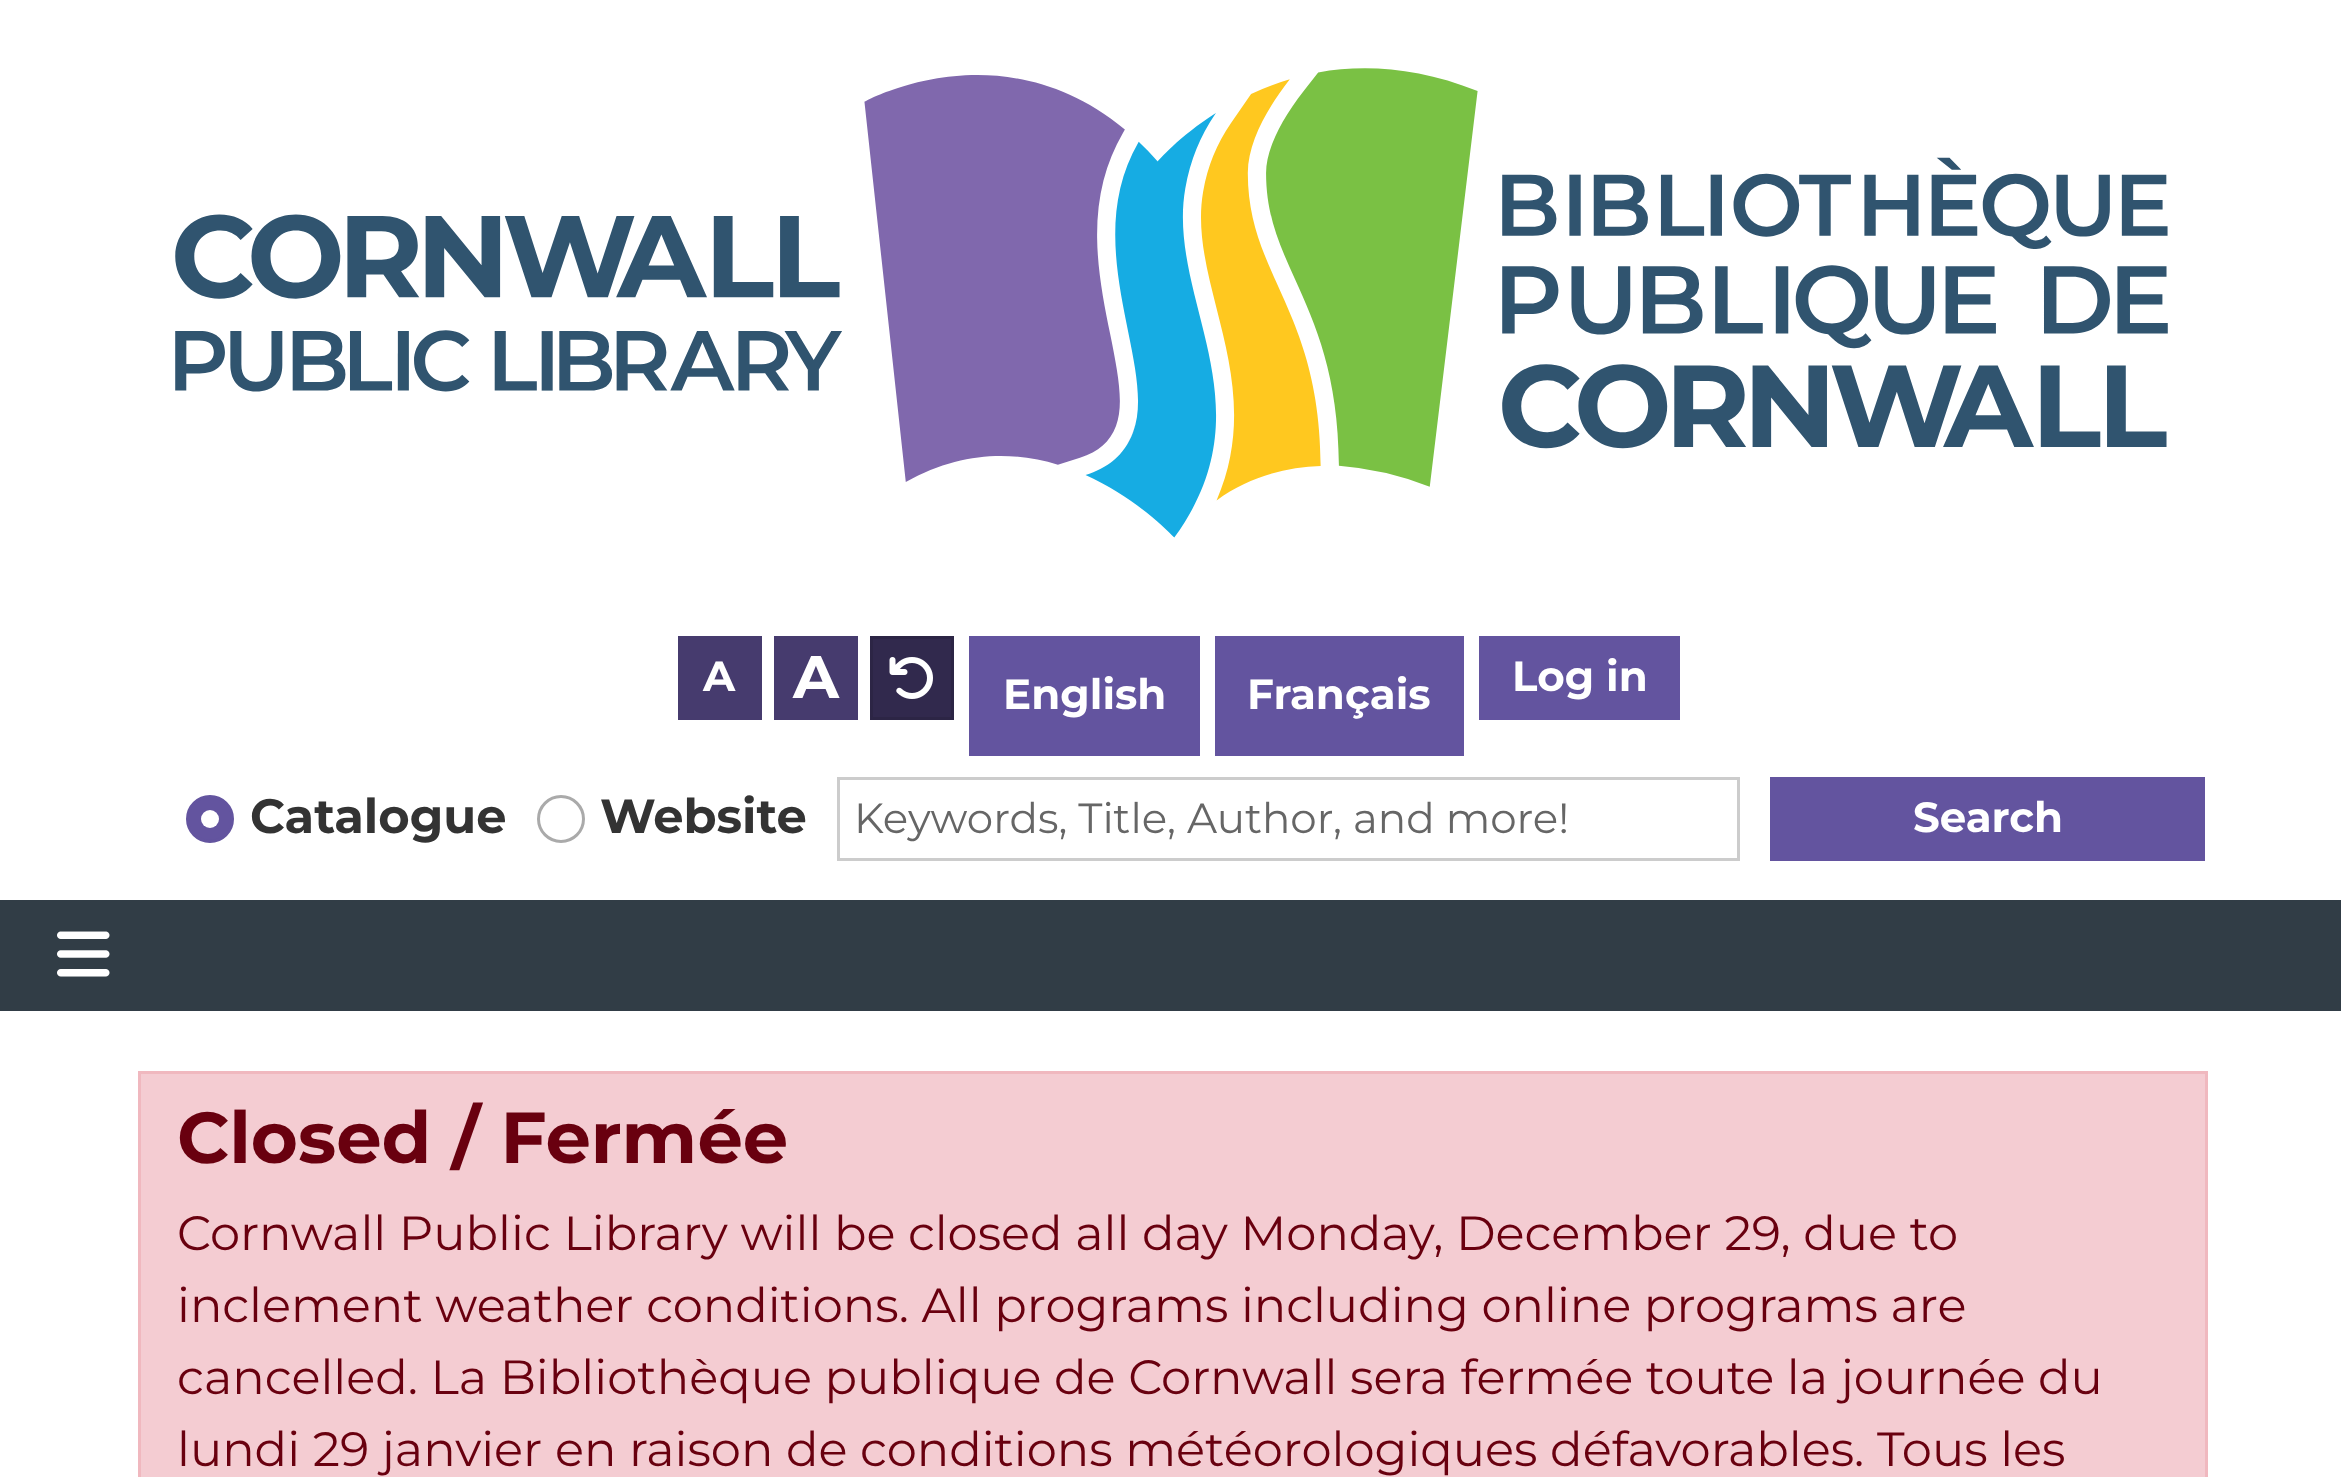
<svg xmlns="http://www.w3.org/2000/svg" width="2341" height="1477">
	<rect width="100%" height="100%" fill="#FFFFFF" />
	<image x="175" y="68" width="1993" height="470" href="assets/img1.png" />
	<rect x="678" y="636" width="84" height="84" fill="#463B6E" />
	<text x="703" y="691" font-family="Montserrat" font-size="42" font-weight="700" fill="#FFFFFF">A</text>
	<rect x="774" y="636" width="84" height="84" fill="#463B6E" />
	<text x="793" y="698" font-family="Montserrat" font-size="60" font-weight="700" fill="#FFFFFF">A</text>
	<rect x="871.5" y="637.5" width="81" height="81" fill="#31294D" stroke="#2C2545" stroke-width="3" />
	<image x="889" y="657" width="44" height="42" href="assets/img2.png" />
	<rect x="969" y="636" width="231" height="120" fill="#63549F" />
	<text x="1003" y="709" font-family="Montserrat" font-size="42" font-weight="700" fill="#FFFFFF">English</text>
	<rect x="1215" y="636" width="249" height="120" fill="#63549F" />
	<text x="1247" y="709" font-family="Montserrat" font-size="42" font-weight="700" fill="#FFFFFF">Français</text>
	<rect x="1479" y="636" width="201" height="84" fill="#63549F" />
	<text x="1512" y="691" font-family="Montserrat" font-size="42" font-weight="700" fill="#FFFFFF">Log in</text>
	<circle cx="210" cy="819" r="22.5" fill="#63549F" stroke="#63549F" stroke-width="3" />
	<text x="250" y="833" font-family="Montserrat" font-size="48" font-weight="700" fill="#333333">Catalogue</text>
	<circle cx="210" cy="819" r="9" fill="#FFFFFF" />
	<circle cx="561" cy="819" r="22.5" fill="none" stroke="#AAAAAA" stroke-width="3" />
	<text x="600" y="833" font-family="Montserrat" font-size="48" font-weight="700" fill="#333333">Website</text>
	<rect x="838.5" y="778.5" width="900" height="81" fill="none" stroke="#CCCCCC" stroke-width="3" />
	<text x="854" y="833" font-family="Montserrat" font-size="42" fill="#666666">Keywords, Title, Author, and more!</text>
	<rect x="1770" y="777" width="435" height="84" fill="#63549F" />
	<text x="1913" y="832" font-family="Montserrat" font-size="42" font-weight="700" fill="#FFFFFF">Search</text>
	<rect x="0" y="900" width="2341" height="111" fill="#313D46" />
	<image x="57" y="931" width="53" height="46" href="assets/img3.png" />
	<rect x="139.5" y="1072.5" width="2067" height="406" fill="#F4CCD2" stroke="#F0B8BF" stroke-width="3" />
	<text x="177" y="1163" font-family="Montserrat" font-size="72" font-weight="700" fill="#69000F">Closed / Fermée</text>
	<g font-family="Montserrat" font-size="48" fill="#69000F">
		<text x="177" y="1250">Cornwall Public Library will be closed all day Monday, December 29, due to</text>
		<text x="177" y="1322">inclement weather conditions. All programs including online programs are</text>
		<text x="177" y="1394">cancelled. La Bibliothèque publique de Cornwall sera fermée toute la journée du</text>
		<text x="177" y="1466">lundi 29 janvier en raison de conditions météorologiques défavorables. Tous les</text>
	</g>
</svg>
